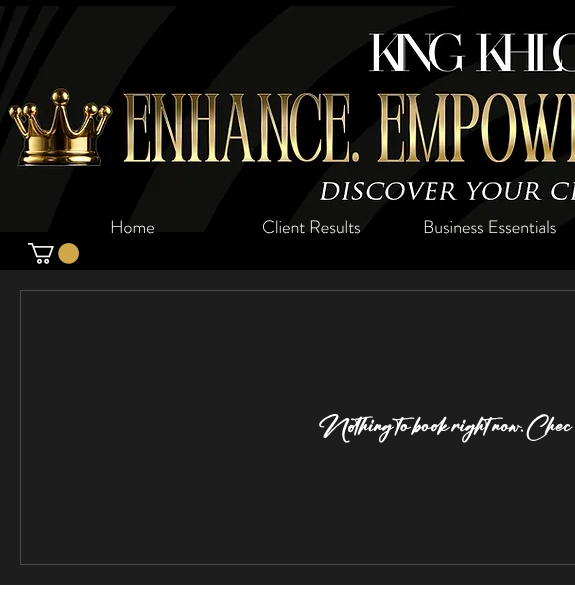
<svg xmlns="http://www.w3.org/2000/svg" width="575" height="600">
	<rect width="100%" height="100%" fill="#FFFFFF" />
	<rect x="0" y="0" width="575" height="270" fill="#000000" />
	<image x="0" y="6" width="575" height="226" href="assets/img1.png" />
	<g font-family="'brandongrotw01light'" font-size="18" font-weight="300" fill="#FFFFFF">
		<text x="110" y="233">Home</text>
		<text x="262" y="233">Client Results</text>
		<text x="423" y="233">Business Essentials</text>
	</g>
	<image x="28" y="243" width="51" height="21" href="assets/img2.png" />
	<rect x="0" y="270" width="575" height="315" fill="#1D1D1D" />
	<rect x="20.5" y="290.5" width="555" height="274" fill="none" stroke="#4A4A4A" />
	<text x="319" y="435" font-family="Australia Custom" font-size="24" font-weight="700" fill="#FFFFFF">Nothing to book right now. Chec</text>
</svg>
